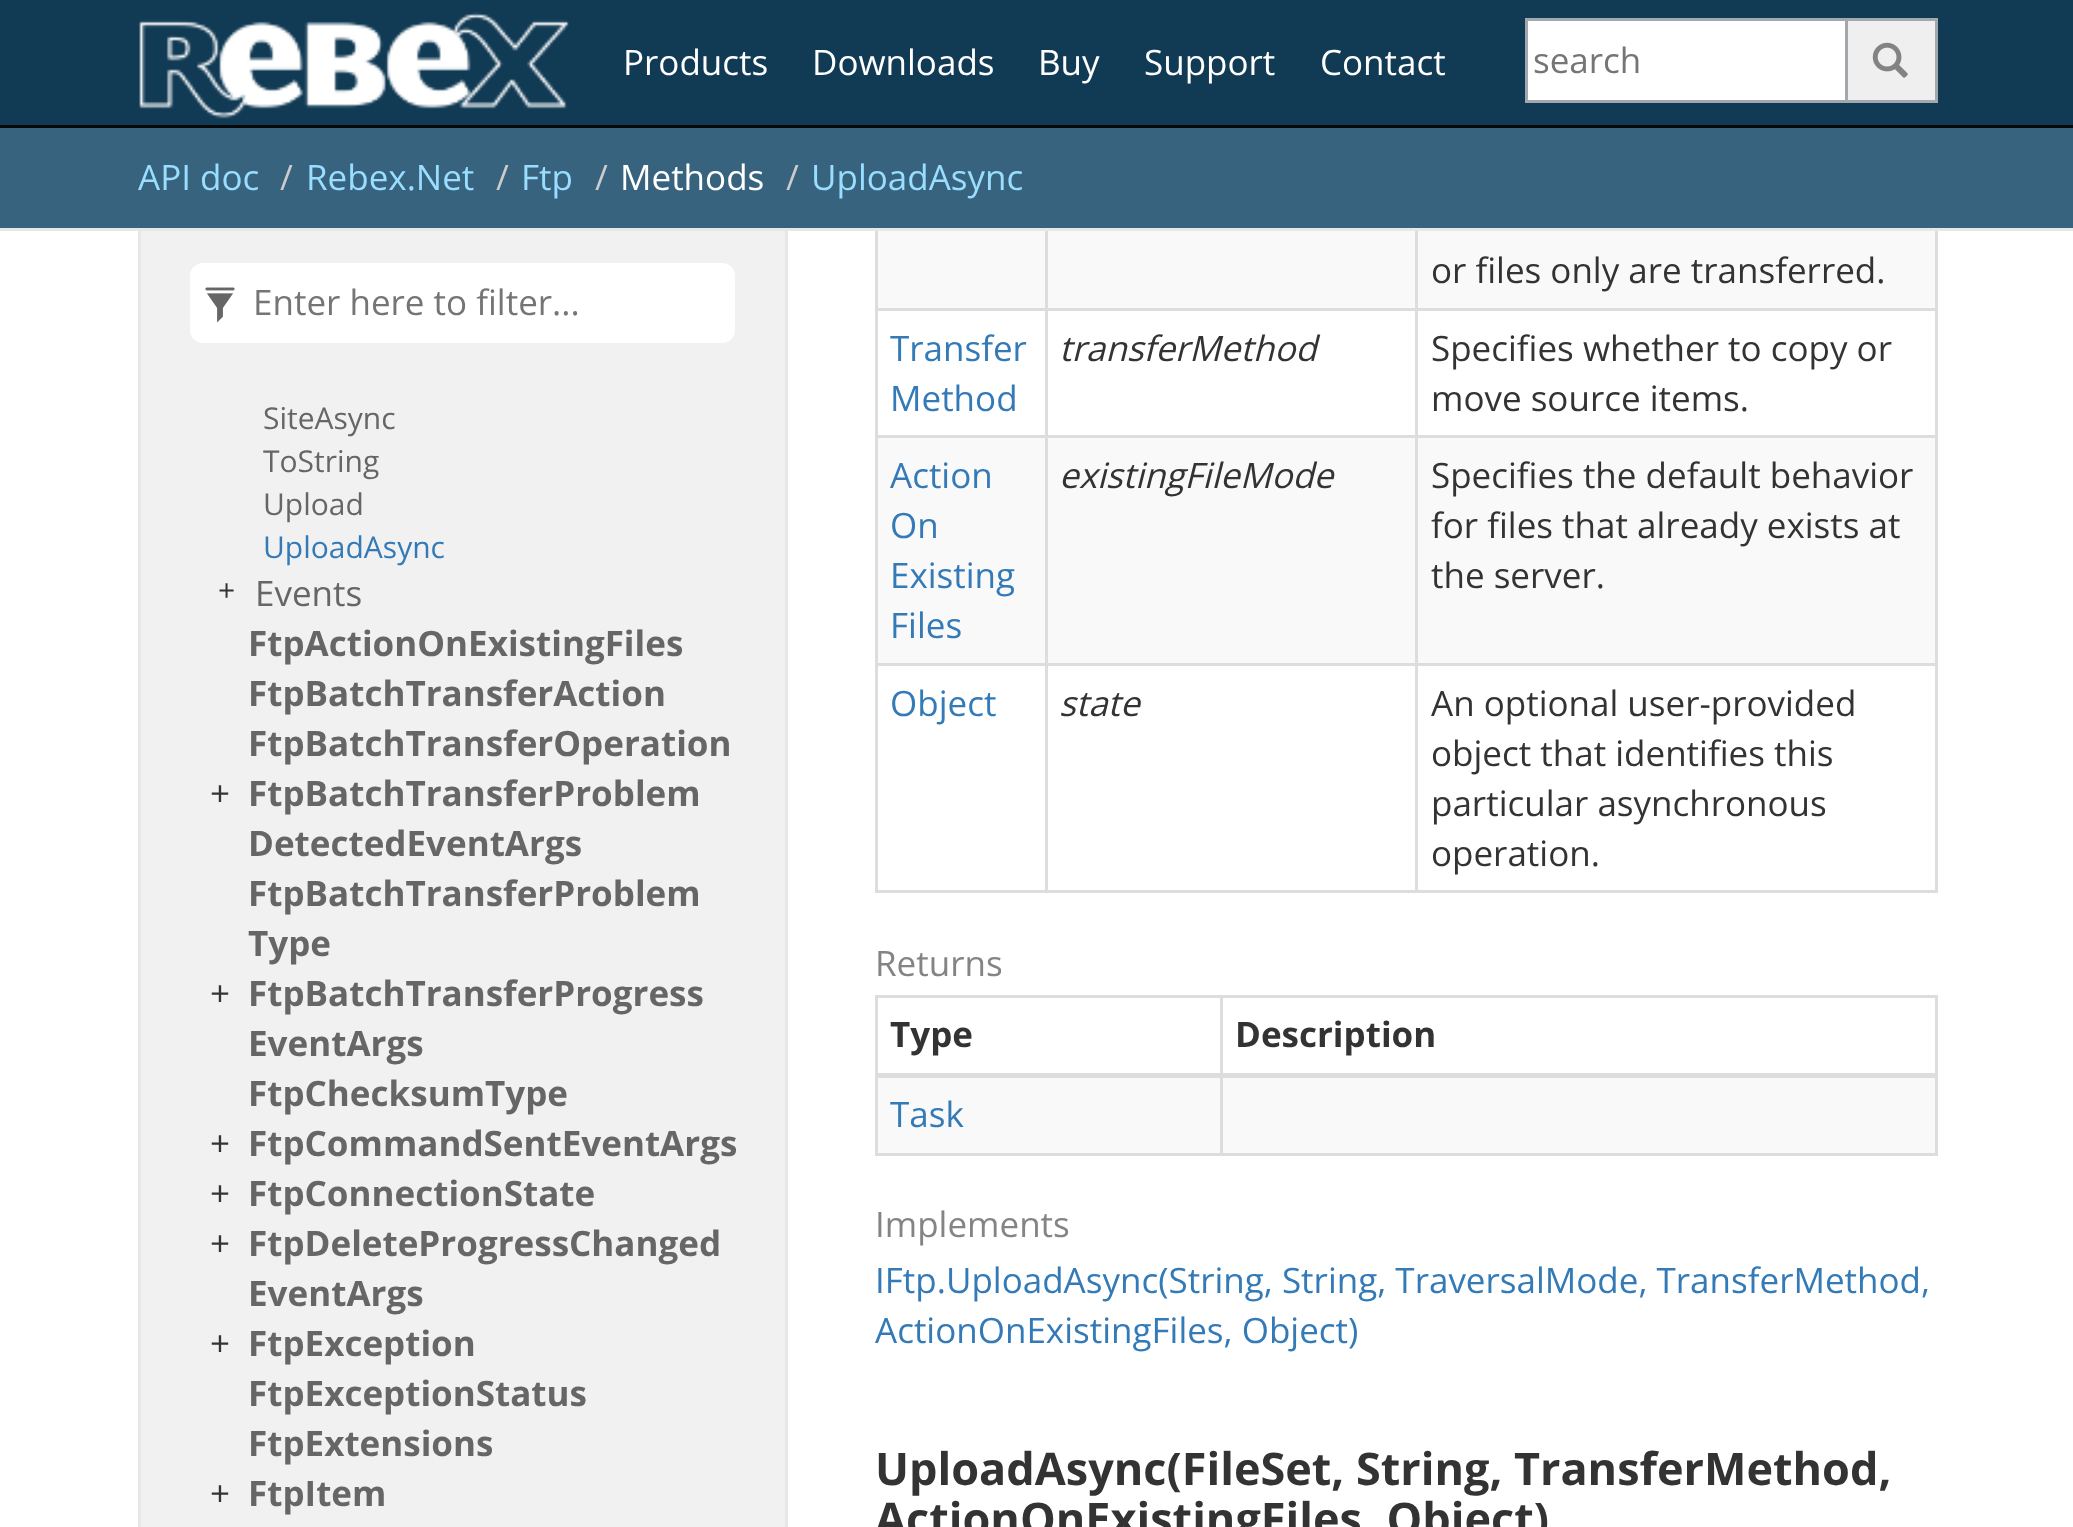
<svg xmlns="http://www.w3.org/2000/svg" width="2073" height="1527">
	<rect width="100%" height="100%" fill="#FFFFFF" />
	<rect x="0" y="0" width="2073" height="125" fill="#113A54" />
	<rect x="0" y="125" width="2073" height="3" fill="#080808" />
	<image x="139" y="12" width="430" height="107" href="assets/img1.png" />
	<g font-family="Open Sans" font-size="35" fill="#FFFFFF">
		<text x="623" y="75">Products</text>
		<text x="812" y="75">Downloads</text>
		<text x="1038" y="75">Buy</text>
		<text x="1144" y="75">Support</text>
		<text x="1320" y="75">Contact</text>
	</g>
	<rect x="1528" y="21" width="317" height="79" fill="#FFFFFF" />
	<rect x="1526.5" y="19.5" width="322" height="82" fill="none" stroke="#A3A8AD" stroke-width="3" />
	<text x="1533" y="73" font-family="Open Sans" font-size="35" fill="#757575">search</text>
	<rect x="1846.5" y="19.5" width="90" height="82" fill="#EFEFEF" stroke="#A3A8AD" stroke-width="3" />
	<image x="1872" y="42" width="36" height="36" href="assets/img2.png" />
	<rect x="785" y="225" width="3" height="1302" fill="#E7E7E7" />
	<rect x="138" y="225" width="3" height="1302" fill="#E7E7E7" />
	<rect x="0" y="128" width="2073" height="100" fill="#38637F" />
	<rect x="0" y="228" width="2073" height="3" fill="#E7E7E7" />
	<text x="138" y="190" font-family="Open Sans" font-size="35" fill="#99DDFF">API doc</text>
	<text x="280" y="190" font-family="Open Sans" font-size="35" fill="#CCCCCC">/</text>
	<text x="306" y="190" font-family="Open Sans" font-size="35" fill="#99DDFF">Rebex.Net</text>
	<text x="496" y="190" font-family="Open Sans" font-size="35" fill="#CCCCCC">/</text>
	<text x="521" y="190" font-family="Open Sans" font-size="35" fill="#99DDFF">Ftp</text>
	<text x="595" y="190" font-family="Open Sans" font-size="35" fill="#CCCCCC">/</text>
	<text x="620" y="190" font-family="Open Sans" font-size="35" fill="#FFFFFF">Methods</text>
	<text x="786" y="190" font-family="Open Sans" font-size="35" fill="#CCCCCC">/</text>
	<text x="811" y="190" font-family="Open Sans" font-size="35" fill="#99DDFF">UploadAsync</text>
	<rect x="141" y="231" width="644" height="1296" fill="#F1F1F1" />
	<rect x="190" y="263" width="545" height="80" rx="13" fill="#FFFFFF" />
	<image x="205" y="287" width="30" height="36" href="assets/img3.png" />
	<text x="253" y="315" font-family="Open Sans" font-size="35" fill="#757575">Enter here to filter...</text>
	<g font-family="Open Sans" font-size="30" fill="#666666">
		<text x="263" y="429">SiteAsync</text>
		<text x="263" y="472">ToString</text>
		<text x="263" y="515">Upload</text>
	</g>
	<text x="263" y="558" font-family="Open Sans" font-size="30" fill="#337AB7">UploadAsync</text>
	<text x="218" y="601" font-family="Open Sans" font-size="30" fill="#333333">+</text>
	<text x="255" y="606" font-family="Open Sans" font-size="35" fill="#666666">Events</text>
	<g font-family="Open Sans" font-size="35" font-weight="700" fill="#666666">
		<text x="248" y="656">FtpActionOnExistingFiles</text>
		<text x="248" y="706">FtpBatchTransferAction</text>
		<text x="248" y="756">FtpBatchTransferOperation</text>
	</g>
	<text x="210" y="806" font-family="Open Sans" font-size="35" fill="#333333">+</text>
	<g font-family="Open Sans" font-size="35" font-weight="700" fill="#666666">
		<text x="248" y="806">FtpBatchTransferProblem</text>
		<text x="248" y="856">DetectedEventArgs</text>
		<text x="248" y="906">FtpBatchTransferProblem</text>
		<text x="248" y="956">Type</text>
	</g>
	<text x="210" y="1006" font-family="Open Sans" font-size="35" fill="#333333">+</text>
	<g font-family="Open Sans" font-size="35" font-weight="700" fill="#666666">
		<text x="248" y="1006">FtpBatchTransferProgress</text>
		<text x="248" y="1056">EventArgs</text>
		<text x="248" y="1106">FtpChecksumType</text>
	</g>
	<text x="210" y="1156" font-family="Open Sans" font-size="35" fill="#333333">+</text>
	<text x="248" y="1156" font-family="Open Sans" font-size="35" font-weight="700" fill="#666666">FtpCommandSentEventArgs</text>
	<text x="210" y="1206" font-family="Open Sans" font-size="35" fill="#333333">+</text>
	<text x="248" y="1206" font-family="Open Sans" font-size="35" font-weight="700" fill="#666666">FtpConnectionState</text>
	<text x="210" y="1256" font-family="Open Sans" font-size="35" fill="#333333">+</text>
	<g font-family="Open Sans" font-size="35" font-weight="700" fill="#666666">
		<text x="248" y="1256">FtpDeleteProgressChanged</text>
		<text x="248" y="1306">EventArgs</text>
	</g>
	<text x="210" y="1356" font-family="Open Sans" font-size="35" fill="#333333">+</text>
	<g font-family="Open Sans" font-size="35" font-weight="700" fill="#666666">
		<text x="248" y="1356">FtpException</text>
		<text x="248" y="1406">FtpExceptionStatus</text>
		<text x="248" y="1456">FtpExtensions</text>
	</g>
	<text x="210" y="1506" font-family="Open Sans" font-size="35" fill="#333333">+</text>
	<text x="248" y="1506" font-family="Open Sans" font-size="35" font-weight="700" fill="#666666">FtpItem</text>
	<rect x="1935" y="231" width="3" height="662" fill="#DDDDDD" />
	<rect x="875" y="890" width="1063" height="3" fill="#DDDDDD" />
	<rect x="875" y="231" width="3" height="662" fill="#DDDDDD" />
	<rect x="878" y="231" width="1057" height="77" fill="#F9F9F9" />
	<rect x="1415" y="308" width="523" height="3" fill="#DDDDDD" />
	<rect x="1415" y="435" width="523" height="3" fill="#DDDDDD" />
	<rect x="878" y="438" width="1057" height="225" fill="#F9F9F9" />
	<rect x="1415" y="663" width="523" height="3" fill="#DDDDDD" />
	<rect x="1415" y="663" width="3" height="230" fill="#DDDDDD" />
	<rect x="1045" y="663" width="373" height="3" fill="#DDDDDD" />
	<rect x="1415" y="435" width="3" height="230" fill="#DDDDDD" />
	<rect x="1045" y="435" width="373" height="3" fill="#DDDDDD" />
	<rect x="1415" y="308" width="3" height="130" fill="#DDDDDD" />
	<rect x="1045" y="308" width="373" height="3" fill="#DDDDDD" />
	<rect x="1045" y="663" width="3" height="230" fill="#DDDDDD" />
	<rect x="875" y="663" width="173" height="3" fill="#DDDDDD" />
	<rect x="1045" y="435" width="3" height="230" fill="#DDDDDD" />
	<rect x="875" y="435" width="173" height="3" fill="#DDDDDD" />
	<rect x="1045" y="308" width="3" height="130" fill="#DDDDDD" />
	<rect x="875" y="308" width="173" height="3" fill="#DDDDDD" />
	<rect x="1045" y="231" width="3" height="79" fill="#DDDDDD" />
	<rect x="1415" y="231" width="3" height="79" fill="#DDDDDD" />
	<text x="1431" y="283" font-family="Open Sans" font-size="35" fill="#333333">or files only are transferred.</text>
	<g font-family="Open Sans" font-size="35" fill="#337AB7">
		<text x="890" y="361">Transfer</text>
		<text x="890" y="411">Method</text>
	</g>
	<text x="1059" y="361" font-family="Open Sans" font-size="35" font-style="italic" fill="#333333">transferMethod</text>
	<g font-family="Open Sans" font-size="35" fill="#333333">
		<text x="1431" y="361">Specifies whether to copy or</text>
		<text x="1431" y="411">move source items.</text>
	</g>
	<g font-family="Open Sans" font-size="35" fill="#337AB7">
		<text x="890" y="488">Action</text>
		<text x="890" y="538">On</text>
		<text x="890" y="588">Existing</text>
		<text x="890" y="638">Files</text>
	</g>
	<text x="1059" y="488" font-family="Open Sans" font-size="35" font-style="italic" fill="#333333">existingFileMode</text>
	<g font-family="Open Sans" font-size="35" fill="#333333">
		<text x="1431" y="488">Specifies the default behavior</text>
		<text x="1431" y="538">for files that already exists at</text>
		<text x="1431" y="588">the server.</text>
	</g>
	<text x="890" y="716" font-family="Open Sans" font-size="35" fill="#337AB7">Object</text>
	<text x="1059" y="716" font-family="Open Sans" font-size="35" font-style="italic" fill="#333333">state</text>
	<g font-family="Open Sans" font-size="35" fill="#333333">
		<text x="1431" y="716">An optional user-provided</text>
		<text x="1431" y="766">object that identifies this</text>
		<text x="1431" y="816">particular asynchronous</text>
		<text x="1431" y="866">operation.</text>
	</g>
	<text x="875" y="976" font-family="Open Sans" font-size="35" fill="#848484">Returns</text>
	<rect x="875" y="995" width="1063" height="3" fill="#DDDDDD" />
	<rect x="1935" y="995" width="3" height="160" fill="#DDDDDD" />
	<rect x="875" y="1153" width="1063" height="3" fill="#DDDDDD" />
	<rect x="875" y="995" width="3" height="160" fill="#DDDDDD" />
	<text x="890" y="1047" font-family="Open Sans" font-size="35" font-weight="700" fill="#333333">Type</text>
	<rect x="878" y="1078" width="1057" height="75" fill="#F9F9F9" />
	<rect x="1220" y="995" width="3" height="160" fill="#DDDDDD" />
	<rect x="875" y="1073" width="1063" height="5" fill="#DDDDDD" />
	<text x="1235" y="1047" font-family="Open Sans" font-size="35" font-weight="700" fill="#333333">Description</text>
	<text x="890" y="1127" font-family="Open Sans" font-size="35" fill="#337AB7">Task</text>
	<text x="875" y="1237" font-family="Open Sans" font-size="35" fill="#848484">Implements</text>
	<g font-family="Open Sans" font-size="35" fill="#337AB7">
		<text x="875" y="1293">IFtp.UploadAsync(String, String, TraversalMode, TransferMethod,</text>
		<text x="875" y="1343">ActionOnExistingFiles, Object)</text>
	</g>
	<g font-family="Open Sans" font-size="45" font-weight="700" fill="#333333">
		<text x="875" y="1485">UploadAsync(FileSet, String, TransferMethod,</text>
		<text x="875" y="1535">ActionOnExistingFiles, Object)</text>
	</g>
</svg>
